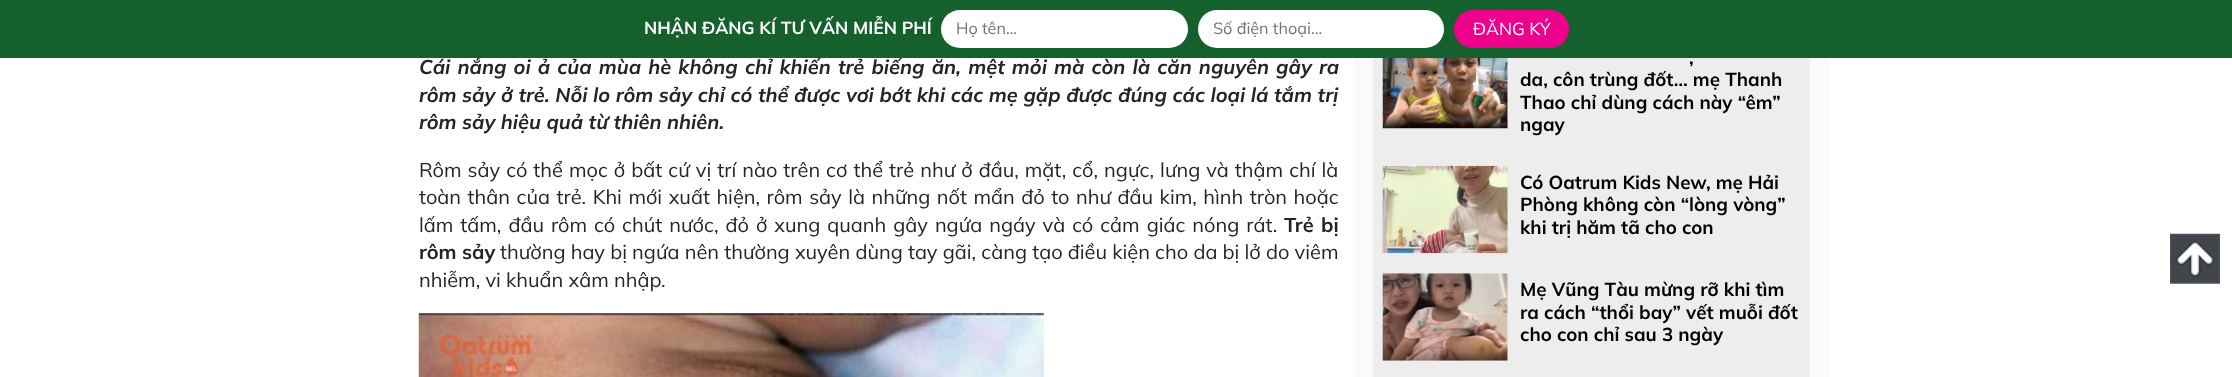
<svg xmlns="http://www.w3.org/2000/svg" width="2232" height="377">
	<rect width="100%" height="100%" fill="#FFFFFF" />
	<text x="419" y="74" word-spacing="1.65" font-family="Mulish" font-size="20" font-weight="700" font-style="italic" fill="#212529">Cái nắng oi ả của mùa hè không chỉ khiến trẻ biếng ăn, mệt mỏi mà còn là căn nguyên gây ra</text>
	<rect x="0" y="0" width="2232" height="58" fill="#16602D" />
	<text x="644" y="34" font-family="Mulish" font-size="17.5" font-weight="700" fill="#FFFFFF">NHẬN ĐĂNG KÍ TƯ VẤN MIỄN PHÍ</text>
	<rect x="941" y="10" width="247" height="38" rx="19" fill="#FFFFFF" />
	<text x="956" y="34" font-family="Mulish" font-size="16.25" fill="#6C757D">Họ tên...</text>
	<rect x="1198" y="10" width="246" height="38" rx="19" fill="#FFFFFF" />
	<text x="1213" y="34" font-family="Mulish" font-size="16.25" fill="#6C757D">Số điện thoại...</text>
	<rect x="1454" y="10" width="115" height="38" rx="19" fill="#EC008C" />
	<text x="1473" y="35" font-family="Mulish" font-size="17.5" fill="#FFFFFF">ĐĂNG KÝ</text>
	<g font-family="Mulish" font-size="20" font-weight="700" font-style="italic" fill="#212529">
		<text x="419" y="102" word-spacing="0.1">rôm sảy ở trẻ. Nỗi lo rôm sảy chỉ có thể được vơi bớt khi các mẹ gặp được đúng các loại lá tắm trị</text>
		<text x="419" y="129">rôm sảy hiệu quả từ thiên nhiên.</text>
	</g>
	<g font-family="Mulish" font-size="20" fill="#212529">
		<text x="419" y="177" word-spacing="0.8">Rôm sảy có thể mọc ở bất cứ vị trí nào trên cơ thể trẻ như ở đầu, mặt, cổ, ngực, lưng và thậm chí là</text>
		<text x="419" y="204" word-spacing="1.3">toàn thân của trẻ. Khi mới xuất hiện, rôm sảy là những nốt mẩn đỏ to như đầu kim, hình tròn hoặc</text>
		<text x="419" y="232" word-spacing="1.75">lấm tấm, đầu rôm có chút nước, đỏ ở xung quanh gây ngứa ngáy và có cảm giác nóng rát.</text>
	</g>
	<g font-family="Mulish" font-size="20" font-weight="700" fill="#212529">
		<text x="1284" y="232" word-spacing="2">Trẻ bị</text>
		<text x="419" y="259">rôm sảy</text>
	</g>
	<g font-family="Mulish" font-size="20" fill="#212529">
		<text x="500" y="259">thường hay bị ngứa nên thường xuyên dùng tay gãi, càng tạo điều kiện cho da bị lở do viêm</text>
		<text x="419" y="287">nhiễm, vi khuẩn xâm nhập.</text>
	</g>
	<image x="418" y="313" width="626" height="64" href="assets/img1.png" />
	<rect x="1354" y="58" width="475" height="319" fill="#FAFAFA" />
	<rect x="1373" y="58" width="437" height="319" fill="#EDEDED" />
	<image x="1382" y="58" width="126" height="71" href="assets/img2.png" />
	<g font-family="Mulish" font-size="18.75" font-weight="700" fill="#000000">
		<text x="1689" y="64">,</text>
		<text x="1520" y="86">da, côn trùng đốt… mẹ Thanh</text>
		<text x="1520" y="109">Thao chỉ dùng cách này “êm”</text>
		<text x="1520" y="131">ngay</text>
	</g>
	<image x="1382" y="165" width="126" height="89" href="assets/img3.png" />
	<g font-family="Mulish" font-size="18.75" font-weight="700" fill="#000000">
		<text x="1520" y="189">Có Oatrum Kids New, mẹ Hải</text>
		<text x="1520" y="211">Phòng không còn “lòng vòng”</text>
		<text x="1520" y="234">khi trị hăm tã cho con</text>
	</g>
	<image x="1382" y="273" width="126" height="88" href="assets/img4.png" />
	<g font-family="Mulish" font-size="18.75" font-weight="700" fill="#000000">
		<text x="1520" y="296">Mẹ Vũng Tàu mừng rỡ khi tìm</text>
		<text x="1520" y="319">ra cách “thổi bay” vết muỗi đốt</text>
		<text x="1520" y="341">cho con chỉ sau 3 ngày</text>
	</g>
	<image x="2170" y="233" width="50" height="51" href="assets/img5.png" />
</svg>
